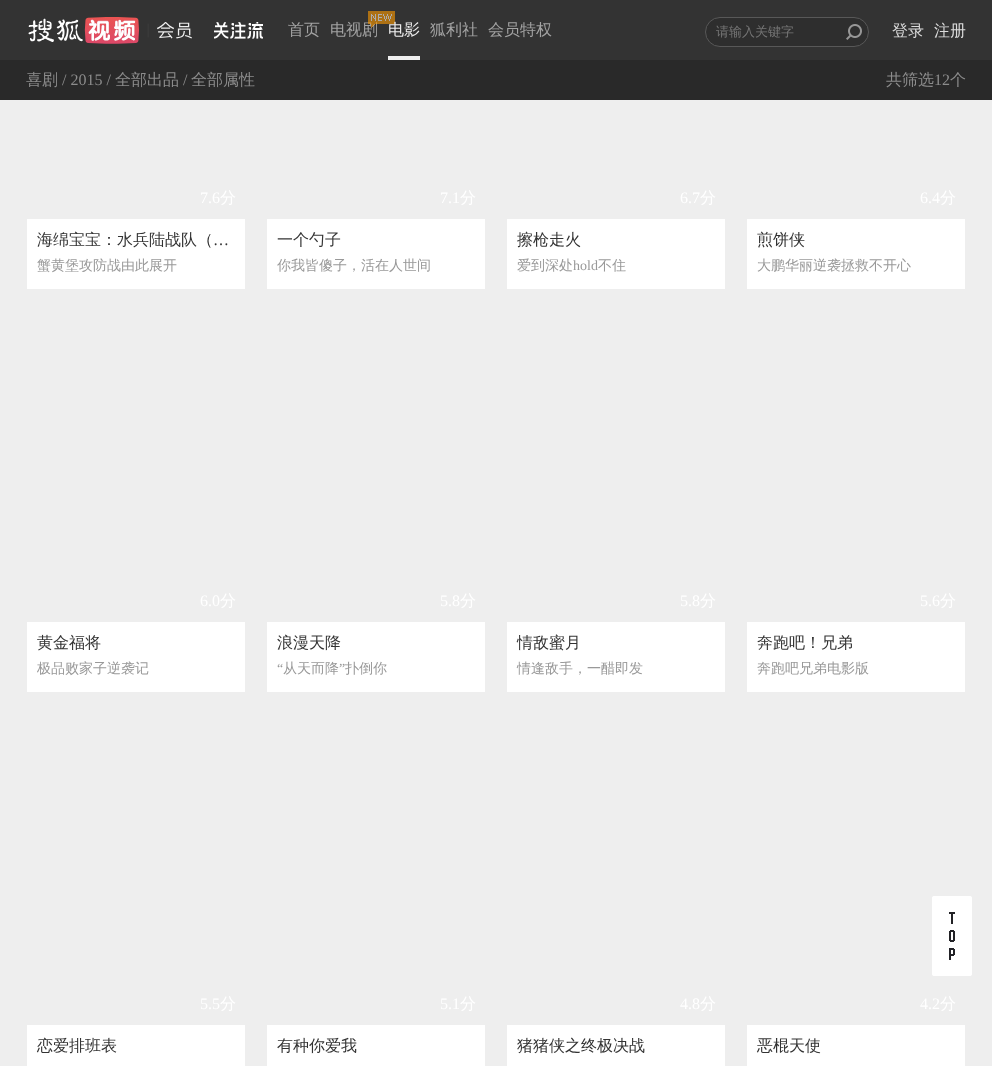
<svg xmlns="http://www.w3.org/2000/svg" width="992" height="1066">
	<rect width="100%" height="100%" fill="#EEEEEE" />
	<rect x="0" y="0" width="992" height="60" fill="#333333" />
	<image x="28" y="17" width="164" height="27" href="assets/img1.png" />
	<image x="214" y="22" width="49" height="17" href="assets/img2.png" />
	<g font-family="WenQuanYi Zen Hei" font-size="16" font-weight="500" fill="#A3A3A3">
		<text x="288" y="35">首页</text>
		<text x="330" y="35">电视剧</text>
	</g>
	<image x="368" y="11" width="27" height="17" href="assets/img3.png" />
	<rect x="388" y="56" width="32" height="4" fill="#EEEEEE" />
	<text x="388" y="35" font-family="WenQuanYi Zen Hei" font-size="16" font-weight="500" fill="#EEEEEE">电影</text>
	<g font-family="WenQuanYi Zen Hei" font-size="16" font-weight="500" fill="#A3A3A3">
		<text x="430" y="35">狐利社</text>
		<text x="488" y="35">会员特权</text>
	</g>
	<rect x="705.5" y="17.5" width="163" height="29" rx="14.5" fill="#2E2E2E" stroke="#585858" />
	<text x="716" y="36" font-family="WenQuanYi Zen Hei" font-size="13" font-weight="500" fill="#757575">请输入关键字</text>
	<image x="846" y="24" width="16" height="16" href="assets/img4.png" />
	<g font-family="WenQuanYi Zen Hei" font-size="16" font-weight="500" fill="#DBDBDB">
		<text x="892" y="36">登录</text>
		<text x="934" y="36">注册</text>
	</g>
	<rect x="0" y="60" width="992" height="40" fill="#292929" />
	<text x="26" y="85" font-family="WenQuanYi Zen Hei" font-size="16" font-weight="500" fill="#8C8C8C">喜剧</text>
	<text x="62" y="85" font-family="Liberation Serif" font-size="16" fill="#8C8C8C">/ 2015 /</text>
	<text x="115" y="85" font-family="WenQuanYi Zen Hei" font-size="16" font-weight="500" fill="#8C8C8C">全部出品</text>
	<text x="183" y="85" font-family="Liberation Serif" font-size="16" fill="#8C8C8C">/</text>
	<g font-family="WenQuanYi Zen Hei" font-size="16" font-weight="500" fill="#8C8C8C">
		<text x="191" y="85">全部属性</text>
		<text x="886" y="85">共筛选</text>
	</g>
	<text x="934" y="85" font-family="Liberation Serif" font-size="16" fill="#8C8C8C">12</text>
	<text x="950" y="85" font-family="WenQuanYi Zen Hei" font-size="16" font-weight="500" fill="#8C8C8C">个</text>
	<text x="200" y="203" font-family="Liberation Serif" font-size="16" fill="#FFFFFF">7.6</text>
	<text x="220" y="203" font-family="WenQuanYi Zen Hei" font-size="16" font-weight="500" fill="#FFFFFF">分</text>
	<rect x="27" y="219" width="218" height="70" fill="#FFFFFF" />
	<text x="37" y="245" font-family="WenQuanYi Zen Hei" font-size="16" font-weight="500" fill="#333333">海绵宝宝：水兵陆战队（</text>
	<text x="213" y="245" font-family="Liberation Serif" font-size="16" fill="#333333">…</text>
	<text x="37" y="270" font-family="WenQuanYi Zen Hei" font-size="14" font-weight="500" fill="#999999">蟹黄堡攻防战由此展开</text>
	<text x="440" y="203" font-family="Liberation Serif" font-size="16" fill="#FFFFFF">7.1</text>
	<text x="460" y="203" font-family="WenQuanYi Zen Hei" font-size="16" font-weight="500" fill="#FFFFFF">分</text>
	<rect x="267" y="219" width="218" height="70" fill="#FFFFFF" />
	<text x="277" y="245" font-family="WenQuanYi Zen Hei" font-size="16" font-weight="500" fill="#333333">一个勺子</text>
	<text x="277" y="270" font-family="WenQuanYi Zen Hei" font-size="14" font-weight="500" fill="#999999">你我皆傻子，活在人世间</text>
	<text x="680" y="203" font-family="Liberation Serif" font-size="16" fill="#FFFFFF">6.7</text>
	<text x="700" y="203" font-family="WenQuanYi Zen Hei" font-size="16" font-weight="500" fill="#FFFFFF">分</text>
	<rect x="507" y="219" width="218" height="70" fill="#FFFFFF" />
	<text x="517" y="245" font-family="WenQuanYi Zen Hei" font-size="16" font-weight="500" fill="#333333">擦枪走火</text>
	<text x="517" y="270" font-family="WenQuanYi Zen Hei" font-size="14" font-weight="500" fill="#999999">爱到深处</text>
	<text x="573" y="270" font-family="Liberation Serif" font-size="14" fill="#999999">hold</text>
	<text x="598" y="270" font-family="WenQuanYi Zen Hei" font-size="14" font-weight="500" fill="#999999">不住</text>
	<text x="920" y="203" font-family="Liberation Serif" font-size="16" fill="#FFFFFF">6.4</text>
	<text x="940" y="203" font-family="WenQuanYi Zen Hei" font-size="16" font-weight="500" fill="#FFFFFF">分</text>
	<rect x="747" y="219" width="218" height="70" fill="#FFFFFF" />
	<text x="757" y="245" font-family="WenQuanYi Zen Hei" font-size="16" font-weight="500" fill="#333333">煎饼侠</text>
	<text x="757" y="270" font-family="WenQuanYi Zen Hei" font-size="14" font-weight="500" fill="#999999">大鹏华丽逆袭拯救不开心</text>
	<text x="200" y="606" font-family="Liberation Serif" font-size="16" fill="#FFFFFF">6.0</text>
	<text x="220" y="606" font-family="WenQuanYi Zen Hei" font-size="16" font-weight="500" fill="#FFFFFF">分</text>
	<rect x="27" y="622" width="218" height="70" fill="#FFFFFF" />
	<text x="37" y="648" font-family="WenQuanYi Zen Hei" font-size="16" font-weight="500" fill="#333333">黄金福将</text>
	<text x="37" y="673" font-family="WenQuanYi Zen Hei" font-size="14" font-weight="500" fill="#999999">极品败家子逆袭记</text>
	<text x="440" y="606" font-family="Liberation Serif" font-size="16" fill="#FFFFFF">5.8</text>
	<text x="460" y="606" font-family="WenQuanYi Zen Hei" font-size="16" font-weight="500" fill="#FFFFFF">分</text>
	<rect x="267" y="622" width="218" height="70" fill="#FFFFFF" />
	<text x="277" y="648" font-family="WenQuanYi Zen Hei" font-size="16" font-weight="500" fill="#333333">浪漫天降</text>
	<text x="277" y="673" font-family="Liberation Serif" font-size="14" fill="#999999">“</text>
	<text x="283" y="673" font-family="WenQuanYi Zen Hei" font-size="14" font-weight="500" fill="#999999">从天而降</text>
	<text x="339" y="673" font-family="Liberation Serif" font-size="14" fill="#999999">”</text>
	<text x="345" y="673" font-family="WenQuanYi Zen Hei" font-size="14" font-weight="500" fill="#999999">扑倒你</text>
	<text x="680" y="606" font-family="Liberation Serif" font-size="16" fill="#FFFFFF">5.8</text>
	<text x="700" y="606" font-family="WenQuanYi Zen Hei" font-size="16" font-weight="500" fill="#FFFFFF">分</text>
	<rect x="507" y="622" width="218" height="70" fill="#FFFFFF" />
	<text x="517" y="648" font-family="WenQuanYi Zen Hei" font-size="16" font-weight="500" fill="#333333">情敌蜜月</text>
	<text x="517" y="673" font-family="WenQuanYi Zen Hei" font-size="14" font-weight="500" fill="#999999">情逢敌手，一醋即发</text>
	<text x="920" y="606" font-family="Liberation Serif" font-size="16" fill="#FFFFFF">5.6</text>
	<text x="940" y="606" font-family="WenQuanYi Zen Hei" font-size="16" font-weight="500" fill="#FFFFFF">分</text>
	<rect x="747" y="622" width="218" height="70" fill="#FFFFFF" />
	<text x="757" y="648" font-family="WenQuanYi Zen Hei" font-size="16" font-weight="500" fill="#333333">奔跑吧！兄弟</text>
	<text x="757" y="673" font-family="WenQuanYi Zen Hei" font-size="14" font-weight="500" fill="#999999">奔跑吧兄弟电影版</text>
	<text x="200" y="1009" font-family="Liberation Serif" font-size="16" fill="#FFFFFF">5.5</text>
	<text x="220" y="1009" font-family="WenQuanYi Zen Hei" font-size="16" font-weight="500" fill="#FFFFFF">分</text>
	<rect x="27" y="1025" width="218" height="41" fill="#FFFFFF" />
	<text x="37" y="1051" font-family="WenQuanYi Zen Hei" font-size="16" font-weight="500" fill="#333333">恋爱排班表</text>
	<text x="440" y="1009" font-family="Liberation Serif" font-size="16" fill="#FFFFFF">5.1</text>
	<text x="460" y="1009" font-family="WenQuanYi Zen Hei" font-size="16" font-weight="500" fill="#FFFFFF">分</text>
	<rect x="267" y="1025" width="218" height="41" fill="#FFFFFF" />
	<text x="277" y="1051" font-family="WenQuanYi Zen Hei" font-size="16" font-weight="500" fill="#333333">有种你爱我</text>
	<text x="680" y="1009" font-family="Liberation Serif" font-size="16" fill="#FFFFFF">4.8</text>
	<text x="700" y="1009" font-family="WenQuanYi Zen Hei" font-size="16" font-weight="500" fill="#FFFFFF">分</text>
	<rect x="507" y="1025" width="218" height="41" fill="#FFFFFF" />
	<text x="517" y="1051" font-family="WenQuanYi Zen Hei" font-size="16" font-weight="500" fill="#333333">猪猪侠之终极决战</text>
	<text x="920" y="1009" font-family="Liberation Serif" font-size="16" fill="#FFFFFF">4.2</text>
	<text x="940" y="1009" font-family="WenQuanYi Zen Hei" font-size="16" font-weight="500" fill="#FFFFFF">分</text>
	<rect x="747" y="1025" width="218" height="41" fill="#FFFFFF" />
	<text x="757" y="1051" font-family="WenQuanYi Zen Hei" font-size="16" font-weight="500" fill="#333333">恶棍天使</text>
	<image x="932" y="896" width="40" height="80" href="assets/img5.png" />
</svg>
